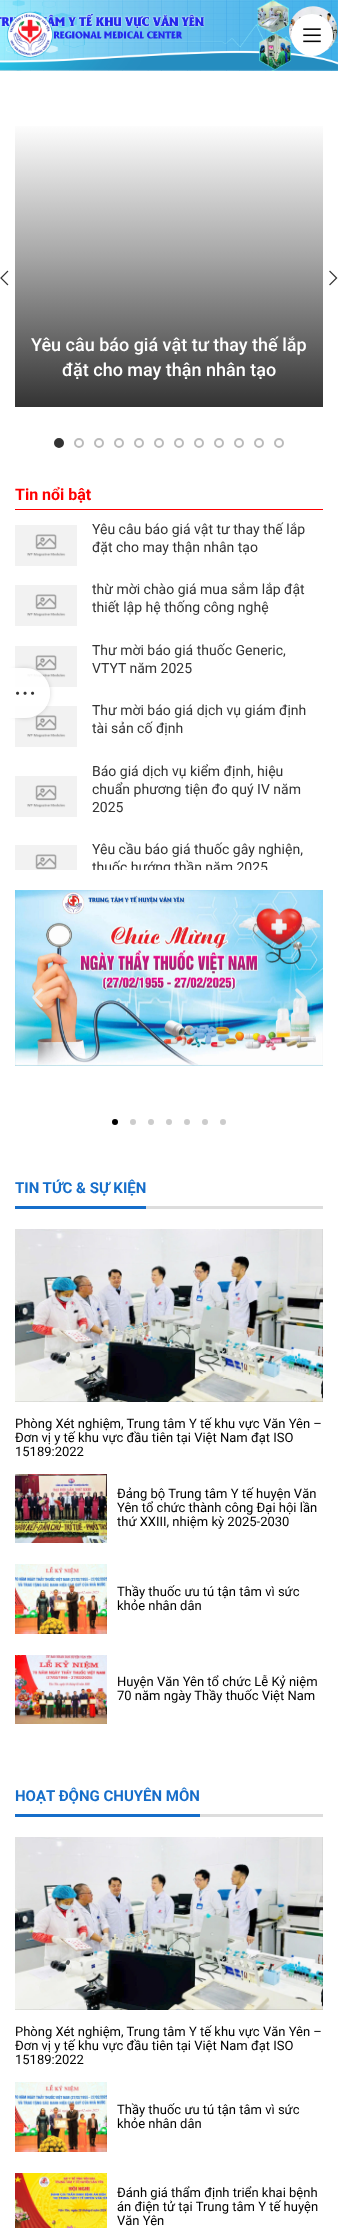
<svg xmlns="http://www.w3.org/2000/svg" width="338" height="2228">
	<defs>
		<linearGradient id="g1" gradientUnits="userSpaceOnUse" x1="169" y1="107" x2="169" y2="407"><stop offset="0.05" stop-color="#FFFFFF" /><stop offset="0.5" stop-color="#A6A6A6" /><stop offset="1" stop-color="#333333" /></linearGradient>
		<clipPath id="clip1"><rect x="92" y="840" width="231" height="30" /></clipPath>
		<clipPath id="clip2"><path d="M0 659H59V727H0ZM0 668H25C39 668 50 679 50 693C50 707 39 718 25 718H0Z" clip-rule="evenodd" /></clipPath>
	</defs>
	<rect width="100%" height="100%" fill="#FFFFFF" />
	<image x="0" y="0" width="338" height="71" href="assets/img1.png" />
	<rect x="0" y="70" width="338" height="1" fill="#818181" fill-opacity="0.2" />
	<image x="7" y="11" width="46" height="47" href="assets/img2.png" />
	<circle cx="312" cy="35" r="21" fill="#FFFFFF" />
	<image x="303" y="28" width="18" height="15" href="assets/img3.png" />
	<image x="0" y="270" width="9" height="16" href="assets/img4.png" />
	<image x="329" y="270" width="9" height="16" href="assets/img5.png" />
	<rect x="15" y="126" width="308" height="281" fill="url(#g1)" />
	<g font-family="Roboto" font-size="18" font-weight="500" fill="#FFFFFF">
		<text x="31" y="351">Yêu câu báo giá vật tư thay thế lắp</text>
		<text x="62" y="376">đặt cho may thận nhân tạo</text>
	</g>
	<circle cx="59" cy="443" r="4" fill="#333333" stroke="#333333" stroke-width="2" />
	<circle cx="79" cy="443" r="4" fill="none" stroke="#BBBBBB" stroke-width="2" />
	<circle cx="99" cy="443" r="4" fill="none" stroke="#BBBBBB" stroke-width="2" />
	<circle cx="119" cy="443" r="4" fill="none" stroke="#BBBBBB" stroke-width="2" />
	<circle cx="139" cy="443" r="4" fill="none" stroke="#BBBBBB" stroke-width="2" />
	<circle cx="159" cy="443" r="4" fill="none" stroke="#BBBBBB" stroke-width="2" />
	<circle cx="179" cy="443" r="4" fill="none" stroke="#BBBBBB" stroke-width="2" />
	<circle cx="199" cy="443" r="4" fill="none" stroke="#BBBBBB" stroke-width="2" />
	<circle cx="219" cy="443" r="4" fill="none" stroke="#BBBBBB" stroke-width="2" />
	<circle cx="239" cy="443" r="4" fill="none" stroke="#BBBBBB" stroke-width="2" />
	<circle cx="259" cy="443" r="4" fill="none" stroke="#BBBBBB" stroke-width="2" />
	<circle cx="279" cy="443" r="4" fill="none" stroke="#BBBBBB" stroke-width="2" />
	<rect x="15" y="509" width="308" height="1" fill="#FF0000" />
	<text x="15" y="500" font-family="Roboto" font-size="16" font-weight="700" fill="#FF0000">Tin nổi bật</text>
	<image x="15" y="525" width="62" height="41" href="assets/img6.png" />
	<g font-family="Roboto" font-size="14" fill="#333333">
		<text x="92" y="534">Yêu câu báo giá vật tư thay thế lắp</text>
		<text x="92" y="552">đặt cho may thận nhân tạo</text>
	</g>
	<image x="15" y="585" width="62" height="41" href="assets/img6.png" />
	<g font-family="Roboto" font-size="14" fill="#333333">
		<text x="92" y="594">thừ mời chào giá mua sắm lắp đật</text>
		<text x="92" y="612">thiết lập hệ thống công nghệ</text>
	</g>
	<image x="15" y="646" width="62" height="41" href="assets/img6.png" />
	<g font-family="Roboto" font-size="14" fill="#333333">
		<text x="92" y="655">Thư mời báo giá thuốc Generic,</text>
		<text x="92" y="673">VTYT năm 2025</text>
	</g>
	<image x="15" y="706" width="62" height="41" href="assets/img7.png" />
	<g font-family="Roboto" font-size="14" fill="#333333">
		<text x="92" y="715">Thư mời báo giá dịch vụ giám định</text>
		<text x="92" y="733">tài sản cố định</text>
	</g>
	<image x="15" y="776" width="62" height="41" href="assets/img6.png" />
	<g font-family="Roboto" font-size="14" fill="#333333">
		<text x="92" y="776">Báo giá dịch vụ kiểm định, hiệu</text>
		<text x="92" y="794">chuẩn phương tiện đo quý IV năm</text>
		<text x="92" y="812">2025</text>
	</g>
	<image x="15" y="845" width="62" height="25" href="assets/img8.png" />
	<text x="92" y="854" font-family="Roboto" font-size="14" fill="#333333">Yêu cầu báo giá thuốc gây nghiện,</text>
	<g clip-path="url(#clip1)">
		<text x="92" y="872" font-family="Roboto" font-size="14" fill="#333333">thuốc hướng thần năm 2025</text>
	</g>
	<image x="15" y="890" width="308" height="176" href="assets/img9.png" />
	<image x="32" y="988" width="11" height="20" href="assets/img10.png" />
	<image x="295" y="988" width="11" height="19" href="assets/img11.png" />
	<circle cx="115" cy="1122" r="3" fill="#000000" />
	<circle cx="133" cy="1122" r="3" fill="#CCCCCC" />
	<circle cx="151" cy="1122" r="3" fill="#CCCCCC" />
	<circle cx="169" cy="1122" r="3" fill="#CCCCCC" />
	<circle cx="187" cy="1122" r="3" fill="#CCCCCC" />
	<circle cx="205" cy="1122" r="3" fill="#CCCCCC" />
	<circle cx="223" cy="1122" r="3" fill="#CCCCCC" />
	<rect x="146" y="1206" width="177" height="3" fill="#DDDDDD" />
	<rect x="15" y="1206" width="131" height="3" fill="#166ECA" />
	<text x="15" y="1193" font-family="Roboto" font-size="15" font-weight="700" fill="#166ECA">TIN TỨC &amp; SỰ KIỆN</text>
	<image x="15" y="1229" width="308" height="173" href="assets/img12.png" />
	<g font-family="Roboto" font-size="13" fill="#000000">
		<text x="15" y="1428">Phòng Xét nghiệm, Trung tâm Y tế khu vực Văn Yên –</text>
		<text x="15" y="1442">Đơn vị y tế khu vực đầu tiên tại Việt Nam đạt ISO</text>
		<text x="15" y="1456">15189:2022</text>
	</g>
	<image x="15" y="1474" width="92" height="69" href="assets/img13.png" />
	<g font-family="Roboto" font-size="13" fill="#000000">
		<text x="117" y="1498">Đảng bộ Trung tâm Y tế huyện Văn</text>
		<text x="117" y="1512">Yên tổ chức thành công Đại hội lần</text>
		<text x="117" y="1526">thứ XXIII, nhiệm kỳ 2025-2030</text>
	</g>
	<image x="15" y="1564" width="92" height="70" href="assets/img14.png" />
	<g font-family="Roboto" font-size="13" fill="#000000">
		<text x="117" y="1596">Thầy thuốc ưu tú tận tâm vì sức</text>
		<text x="117" y="1610">khỏe nhân dân</text>
	</g>
	<image x="15" y="1655" width="92" height="69" href="assets/img15.png" />
	<g font-family="Roboto" font-size="13" fill="#000000">
		<text x="117" y="1686">Huyện Văn Yên tổ chức Lễ Kỷ niệm</text>
		<text x="117" y="1700">70 năm ngày Thầy thuốc Việt Nam</text>
	</g>
	<rect x="200" y="1814" width="123" height="3" fill="#DDDDDD" />
	<rect x="15" y="1814" width="185" height="3" fill="#166ECA" />
	<text x="15" y="1801" font-family="Roboto" font-size="15" font-weight="700" fill="#166ECA">HOẠT ĐỘNG CHUYÊN MÔN</text>
	<image x="15" y="1837" width="308" height="173" href="assets/img16.png" />
	<g font-family="Roboto" font-size="13" fill="#000000">
		<text x="15" y="2036">Phòng Xét nghiệm, Trung tâm Y tế khu vực Văn Yên –</text>
		<text x="15" y="2050">Đơn vị y tế khu vực đầu tiên tại Việt Nam đạt ISO</text>
		<text x="15" y="2064">15189:2022</text>
	</g>
	<image x="15" y="2082" width="92" height="70" href="assets/img14.png" />
	<g font-family="Roboto" font-size="13" fill="#000000">
		<text x="117" y="2114">Thầy thuốc ưu tú tận tâm vì sức</text>
		<text x="117" y="2128">khỏe nhân dân</text>
	</g>
	<image x="15" y="2173" width="92" height="55" href="assets/img17.png" />
	<g font-family="Roboto" font-size="13" fill="#000000">
		<text x="117" y="2197">Đánh giá thẩm định triển khai bệnh</text>
		<text x="117" y="2211">án điện tử tại Trung tâm Y tế huyện</text>
		<text x="117" y="2225">Văn Yên</text>
	</g>
	<g clip-path="url(#clip2)">
		<rect x="0" y="668" width="50" height="50" rx="25" fill="#000000" fill-opacity="0.17" filter="blur(2.5px)" />
	</g>
	<path d="M0 668H25C39 668 50 679 50 693C50 707 39 718 25 718H0Z" fill="#FFFFFF" fill-opacity="0.9" />
	<image x="16" y="691" width="19" height="4" href="assets/img18.png" />
</svg>
